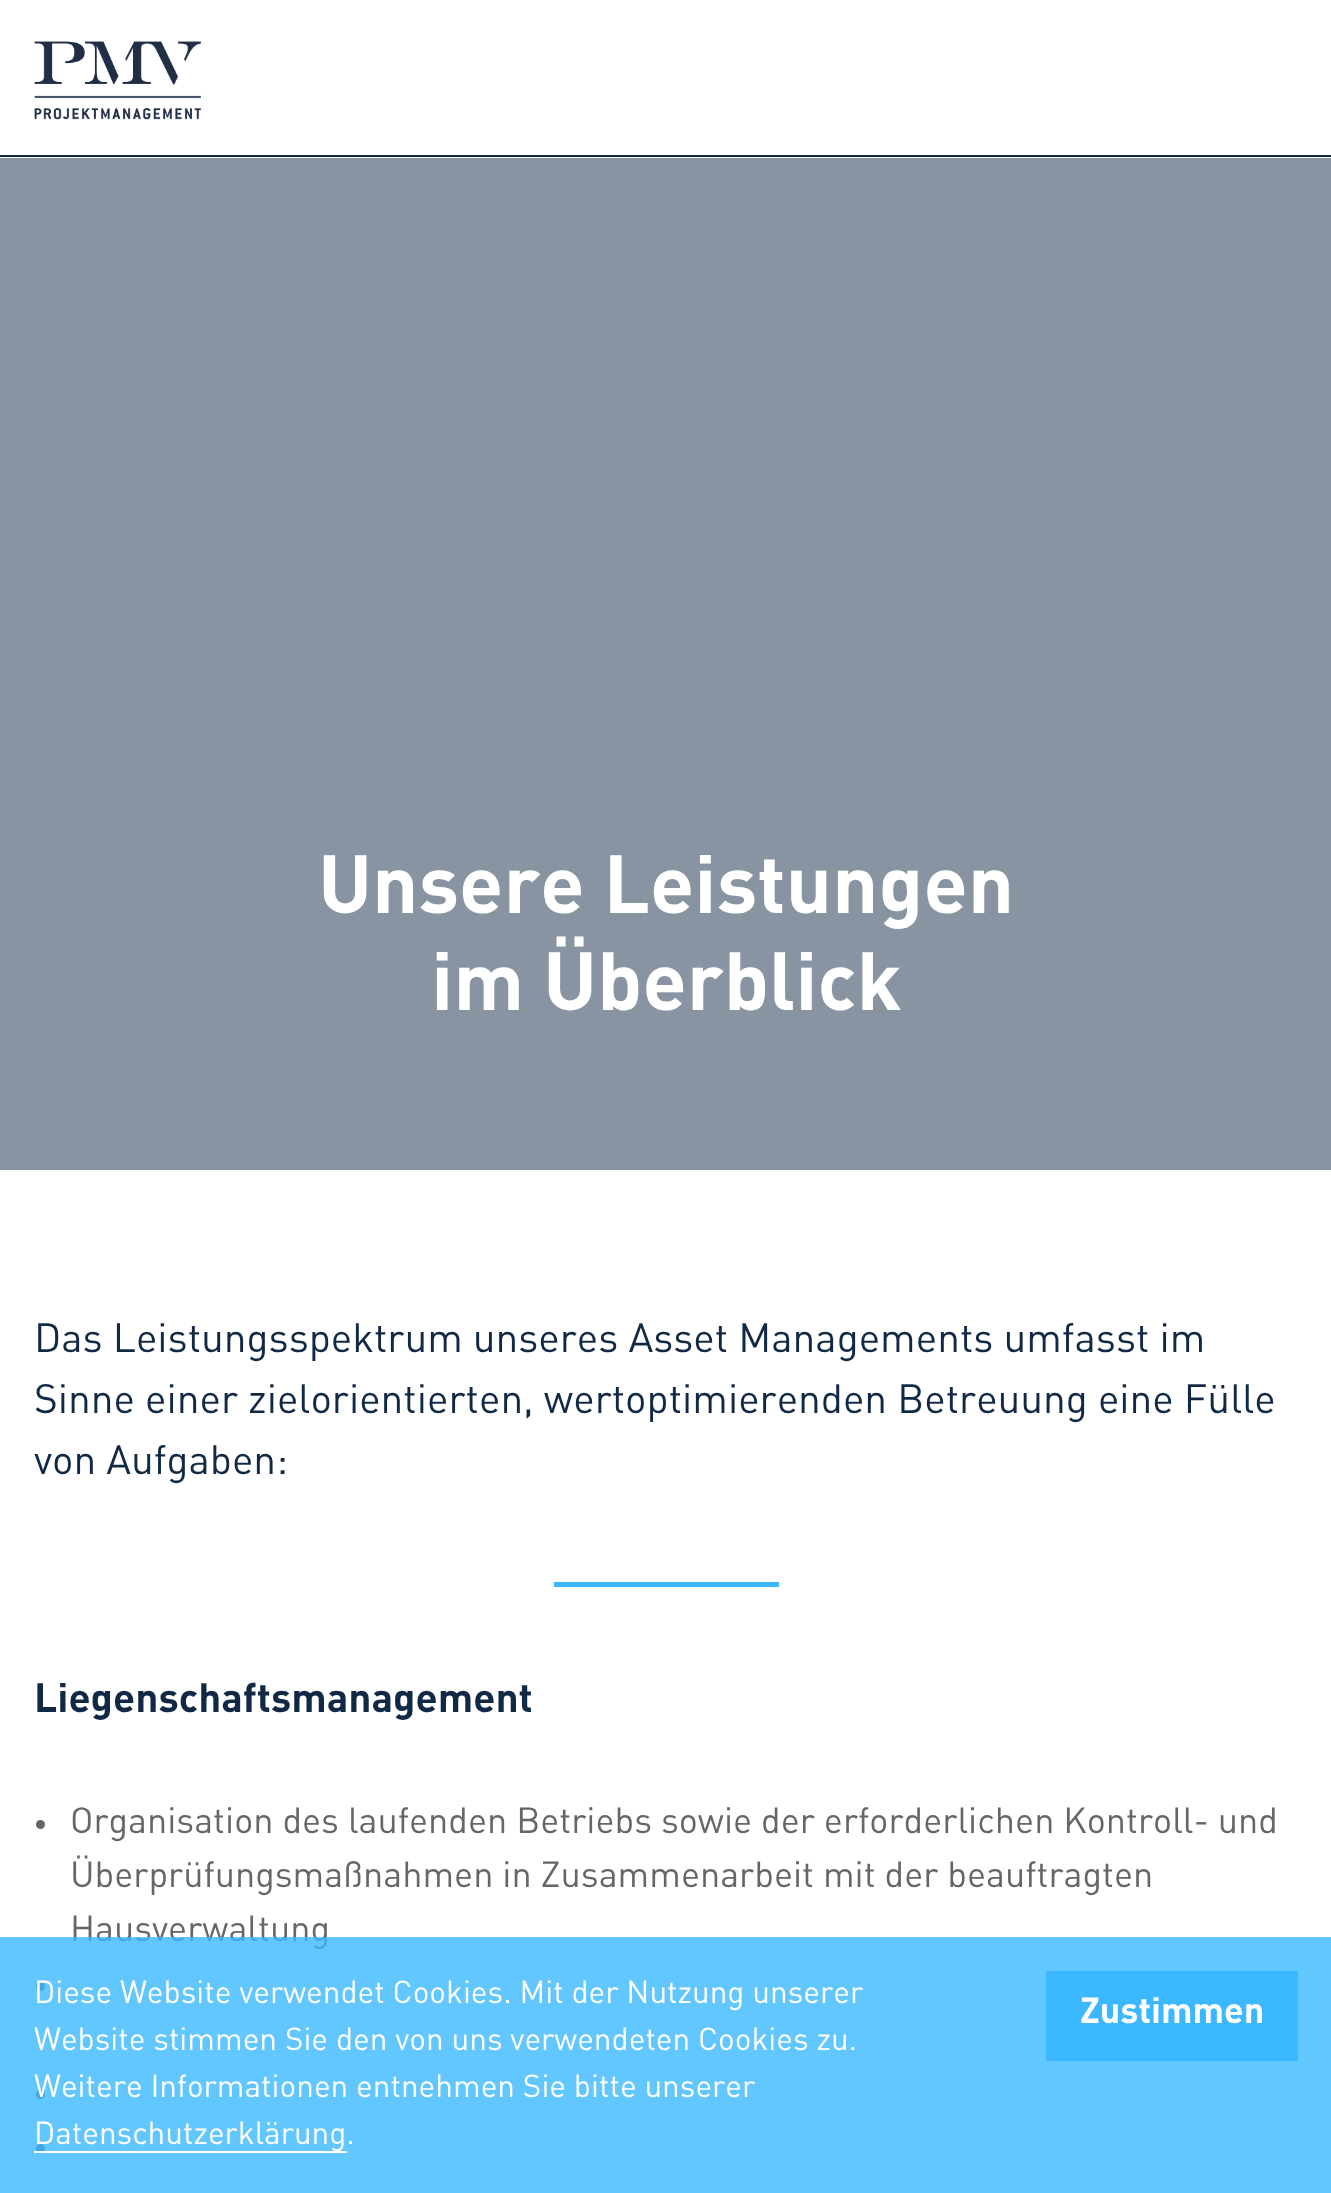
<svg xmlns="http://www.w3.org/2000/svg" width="1331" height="2193">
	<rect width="100%" height="100%" fill="#FFFFFF" />
	<rect x="0" y="155" width="1331" height="2" fill="#122945" />
	<image x="34" y="41" width="168" height="79" href="assets/img1.png" />
	<rect x="0" y="158" width="1331" height="1012" fill="#8994A2" />
	<g font-family="DIN" font-size="81" font-weight="700" fill="#FFFFFF">
		<text x="318" y="913">Unsere Leistungen</text>
		<text x="431" y="1010">im Überblick</text>
	</g>
	<g font-family="DIN" font-size="40.5" fill="#122945">
		<text x="34" y="1352">Das Leistungsspektrum unseres Asset Managements umfasst im</text>
		<text x="34" y="1413">Sinne einer zielorientierten, wertoptimierenden Betreuung eine Fülle</text>
		<text x="34" y="1474">von Aufgaben:</text>
	</g>
	<rect x="554" y="1582" width="225" height="5" fill="#3BB8FF" />
	<text x="34" y="1712" font-family="DIN" font-size="40.5" font-weight="700" fill="#122945">Liegenschaftsmanagement</text>
	<circle cx="40.5" cy="1824.5" r="4.5" fill="#666666" />
	<g font-family="DIN" font-size="36" fill="#666666">
		<text x="70" y="1833">Organisation des laufenden Betriebs sowie der erforderlichen Kontroll- und</text>
		<text x="70" y="1887">Überprüfungsmaßnahmen in Zusammenarbeit mit der beauftragten</text>
		<text x="70" y="1941">Hausverwaltung</text>
	</g>
	<circle cx="40.5" cy="1986.5" r="4.5" fill="#666666" />
	<circle cx="40.5" cy="2094.5" r="4.5" fill="#666666" />
	<circle cx="40.5" cy="2148.5" r="4.5" fill="#666666" />
	<rect x="0" y="1937" width="1331" height="256" fill="#3BB8FF" fill-opacity="0.8" />
	<g font-family="DIN" font-size="31.5" fill="#FFFFFF">
		<text x="34" y="2003">Diese Website verwendet Cookies. Mit der Nutzung unserer</text>
		<text x="34" y="2050">Website stimmen Sie den von uns verwendeten Cookies zu.</text>
		<text x="34" y="2097">Weitere Informationen entnehmen Sie bitte unserer</text>
	</g>
	<rect x="34" y="2151" width="313" height="2" fill="#FFFFFF" />
	<text x="34" y="2144" font-family="DIN" font-size="31.5" fill="#FFFFFF">Datenschutzerklärung.</text>
	<rect x="1046" y="1971" width="252" height="90" fill="#3BB8FF" />
	<text x="1080" y="2023" font-family="DIN" font-size="36" font-weight="700" fill="#FFFFFF">Zustimmen</text>
</svg>
